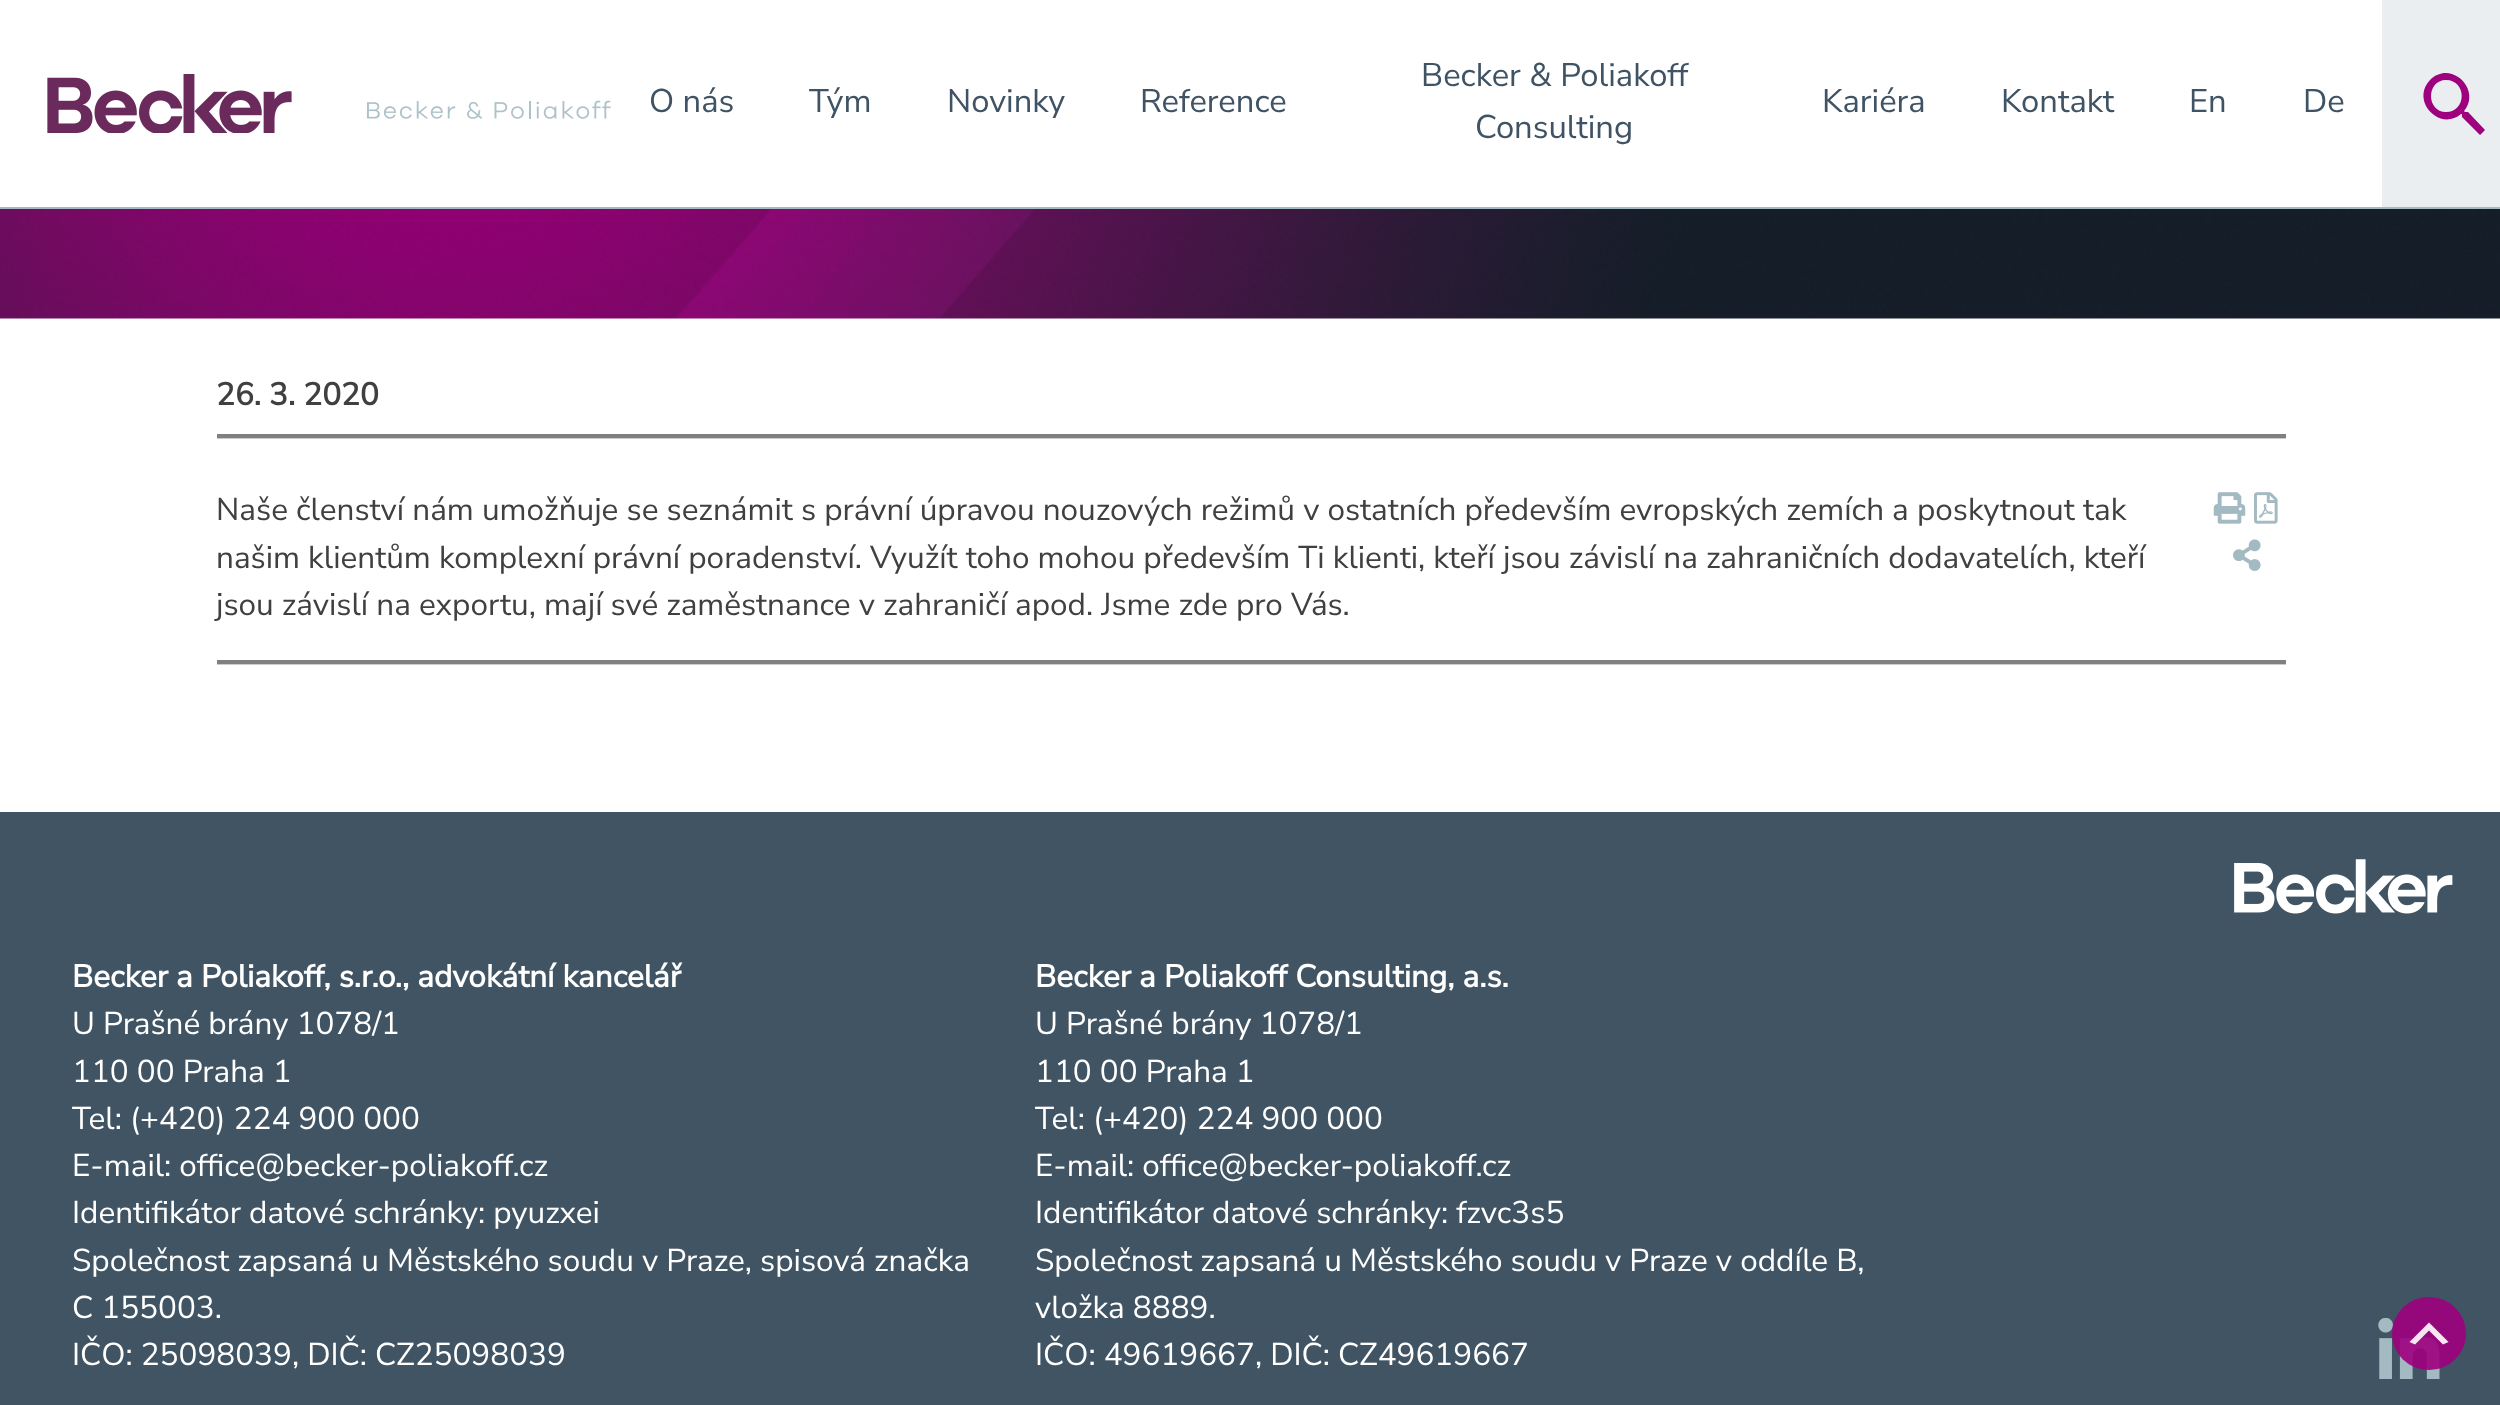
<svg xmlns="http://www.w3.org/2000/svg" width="2500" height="1405">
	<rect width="100%" height="100%" fill="#FFFFFF" />
	<rect x="0" y="207" width="2500" height="2" fill="#A3BAC2" />
	<image x="47" y="74" width="564" height="59" href="assets/img1.png" />
	<g font-family="Nunito Sans" font-size="32.75" font-weight="200" fill="#3F5364">
		<text x="649" y="112">O nás</text>
		<text x="809" y="112">Tým</text>
		<text x="947" y="112">Novinky</text>
		<text x="1140" y="112">Reference</text>
		<text x="1421" y="86">Becker &amp; Poliakoff</text>
		<text x="1475" y="138">Consulting</text>
		<text x="1822" y="112">Kariéra</text>
		<text x="2001" y="112">Kontakt</text>
		<text x="2189" y="112">En</text>
		<text x="2303" y="112">De</text>
	</g>
	<rect x="2382" y="0" width="118" height="207" fill="#EBEEF0" />
	<path d="M2468 112H2465L2464 111C2482 90 2451 59 2430 80C2410 101 2440 132 2461 114H2462V117L2480 135L2485 130ZM2446 112C2426 112 2426 80 2446 80C2467 80 2467 112 2446 112Z" fill="#9E007E" />
	<image x="0" y="209" width="2500" height="110" href="assets/img2.png" />
	<text x="216" y="405" font-family="Nunito Sans" font-size="31.5" font-weight="700" fill="#404040">26. 3. 2020</text>
	<rect x="217" y="438" width="2069" height="1" fill="#CCCCCC" />
	<rect x="217" y="434" width="2069" height="4" fill="#808080" />
	<g font-family="Nunito Sans" font-size="31.5" font-weight="200" fill="#404040">
		<text x="216" y="520">Naše členství nám umožňuje se seznámit s právní úpravou nouzových režimů v ostatních především evropských zemích a poskytnout tak</text>
		<text x="216" y="568">našim klientům komplexní právní poradenství. Využít toho mohou především Ti klienti, kteří jsou závislí na zahraničních dodavatelích, kteří</text>
		<text x="216" y="615">jsou závislí na exportu, mají své zaměstnance v zahraničí apod. Jsme zde pro Vás.</text>
	</g>
	<image x="2213" y="492" width="33" height="32" href="assets/img3.png" />
	<image x="2254" y="492" width="24" height="32" href="assets/img4.png" />
	<image x="2233" y="539" width="28" height="32" href="assets/img5.png" />
	<rect x="217" y="664" width="2069" height="1" fill="#CCCCCC" />
	<rect x="217" y="660" width="2069" height="4" fill="#808080" />
	<rect x="0" y="812" width="2500" height="593" fill="#405463" />
	<image x="2234" y="859" width="219" height="55" href="assets/img6.png" />
	<text x="72" y="987" font-family="Nunito Sans" font-size="31.5" font-weight="700" fill="#FFFFFF">Becker a Poliakoff, s.r.o., advokátní kancelář</text>
	<g font-family="Nunito Sans" font-size="31.5" font-weight="200" fill="#FFFFFF">
		<text x="72" y="1034">U Prašné brány 1078/1</text>
		<text x="72" y="1082">110 00 Praha 1</text>
		<text x="72" y="1129">Tel: (+420) 224 900 000</text>
		<text x="72" y="1176">E-mail: office@becker-poliakoff.cz</text>
		<text x="72" y="1223">Identifikátor datové schránky: pyuzxei</text>
		<text x="72" y="1271">Společnost zapsaná u Městského soudu v Praze, spisová značka</text>
		<text x="72" y="1318">C 155003.</text>
		<text x="72" y="1365">IČO: 25098039, DIČ: CZ25098039</text>
	</g>
	<text x="1035" y="987" font-family="Nunito Sans" font-size="31.5" font-weight="700" fill="#FFFFFF">Becker a Poliakoff Consulting, a.s.</text>
	<g font-family="Nunito Sans" font-size="31.5" font-weight="200" fill="#FFFFFF">
		<text x="1035" y="1034">U Prašné brány 1078/1</text>
		<text x="1035" y="1082">110 00 Praha 1</text>
		<text x="1035" y="1129">Tel: (+420) 224 900 000</text>
		<text x="1035" y="1176">E-mail: office@becker-poliakoff.cz</text>
		<text x="1035" y="1223">Identifikátor datové schránky: fzvc3s5</text>
		<text x="1035" y="1271">Společnost zapsaná u Městského soudu v Praze v oddíle B,</text>
		<text x="1035" y="1318">vložka 8889.</text>
		<text x="1035" y="1365">IČO: 49619667, DIČ: CZ49619667</text>
	</g>
	<image x="2378" y="1318" width="62" height="61" href="assets/img7.png" />
	<rect x="2392" y="1297" width="74" height="73" rx="36.5" fill="#9E007E" fill-opacity="0.9" />
	<path d="M2443 1344.5L2429 1330.5L2415 1344.5L2409.5 1342L2429 1322.5L2448.5 1342Z" fill="#FFFFFF" fill-opacity="0.9" />
</svg>
